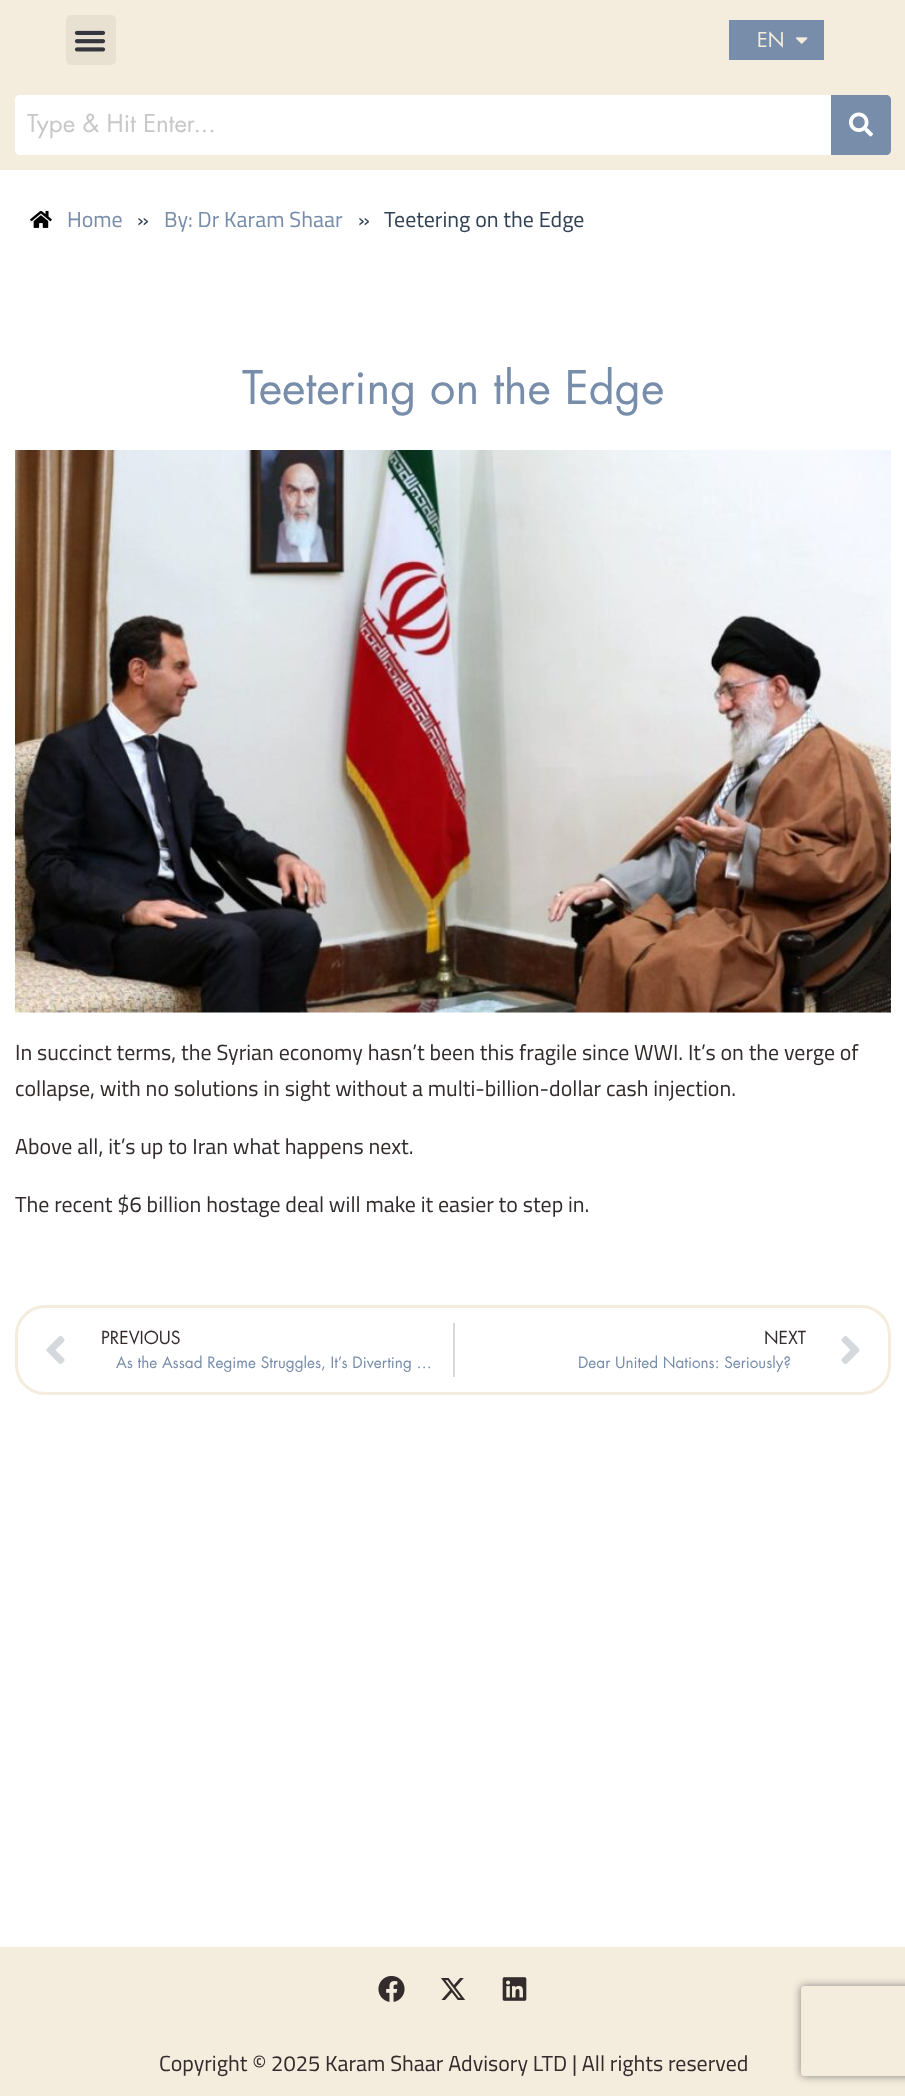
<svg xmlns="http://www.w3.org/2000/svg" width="905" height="2096">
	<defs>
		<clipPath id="clip1"><path d="M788 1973H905V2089H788ZM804 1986H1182C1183.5 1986 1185 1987.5 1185 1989V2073C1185 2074.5 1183.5 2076 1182 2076H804C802.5 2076 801 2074.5 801 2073V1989C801 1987.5 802.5 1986 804 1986Z" clip-rule="evenodd" /></clipPath>
	</defs>
	<rect width="100%" height="100%" fill="#FFFFFF" />
	<rect x="0" y="0" width="905" height="170" fill="#F4ECDC" />
	<rect x="66" y="15" width="50" height="50" rx="5" fill="#E8E0D1" />
	<image x="74" y="30" width="32" height="22" href="assets/img1.png" />
	<rect x="729" y="20" width="95" height="40" fill="#778DAA" />
	<text x="757" y="47" font-family="Futura" font-size="20" fill="#F4ECDC">EN</text>
	<image x="796" y="37" width="12" height="7" href="assets/img2.png" />
	<path d="M20 95H831V155H20C17 155 15 153 15 150V100C15 97 17 95 20 95Z" fill="#FFFFFF" />
	<text x="27" y="132" font-family="Futura" font-size="24" fill="#C7C7C7">Type &amp; Hit Enter...</text>
	<path d="M831 95H886C889 95 891 97 891 100V150C891 153 889 155 886 155H831Z" fill="#778DAA" />
	<image x="849" y="112" width="24" height="25" href="assets/img3.png" />
	<image x="30" y="210" width="22" height="18" href="assets/img4.png" />
	<text x="67" y="227" font-family="Cairo" font-size="21.9" fill="#778DAA">Home</text>
	<text x="137" y="227" font-family="Cairo" font-size="21.9" fill="#334155">»</text>
	<text x="164" y="227" font-family="Cairo" font-size="21.9" fill="#778DAA">By: Dr Karam Shaar</text>
	<g font-family="Cairo" font-size="21.9" fill="#334155">
		<text x="358" y="227">»</text>
		<text x="384" y="227">Teetering on the Edge</text>
	</g>
	<text x="242" y="404" font-family="Futura" font-size="45" fill="#778DAA">Teetering on the Edge</text>
	<image x="15" y="450" width="876" height="563" href="assets/img5.png" />
	<g font-family="Cairo" font-size="21.9" fill="#342C2C">
		<text x="15" y="1060">In succinct terms, the Syrian economy hasn’t been this fragile since WWI. It’s on the verge of</text>
		<text x="15" y="1096">collapse, with no solutions in sight without a multi-billion-dollar cash injection.</text>
		<text x="15" y="1154">Above all, it’s up to Iran what happens next.</text>
		<text x="15" y="1212">The recent $6 billion hostage deal will make it easier to step in.</text>
	</g>
	<rect x="16.5" y="1306.5" width="873" height="87" rx="28.5" fill="none" stroke="#F4ECDC" stroke-width="3" />
	<image x="46" y="1336" width="19" height="28" href="assets/img6.png" />
	<text x="101" y="1344" font-family="Futura" font-size="17.5" fill="#342C2C">PREVIOUS</text>
	<text x="116" y="1368" font-family="Futura" font-size="15.3" fill="#778DAA">As the Assad Regime Struggles, It’s Diverting …</text>
	<rect x="453" y="1323" width="2" height="54" fill="#D5D8DC" />
	<text x="764" y="1344" font-family="Futura" font-size="17.5" fill="#342C2C">NEXT</text>
	<text x="578" y="1368" font-family="Futura" font-size="15.3" fill="#778DAA">Dear United Nations: Seriously?</text>
	<image x="841" y="1336" width="19" height="28" href="assets/img7.png" />
	<rect x="0" y="1947" width="905" height="149" fill="#F4ECDC" />
	<image x="378" y="1976" width="27" height="26" href="assets/img8.png" />
	<image x="441" y="1978" width="25" height="22" href="assets/img9.png" />
	<image x="502" y="1977" width="25" height="24" href="assets/img10.png" />
	<text x="159" y="2071" font-family="Cairo" font-size="21.9" fill="#342C2C">Copyright © 2025 Karam Shaar Advisory LTD | All rights reserved</text>
	<g clip-path="url(#clip1)">
		<rect x="801" y="1986" width="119" height="90" rx="3" fill="#808080" filter="blur(4px)" />
	</g>
</svg>
